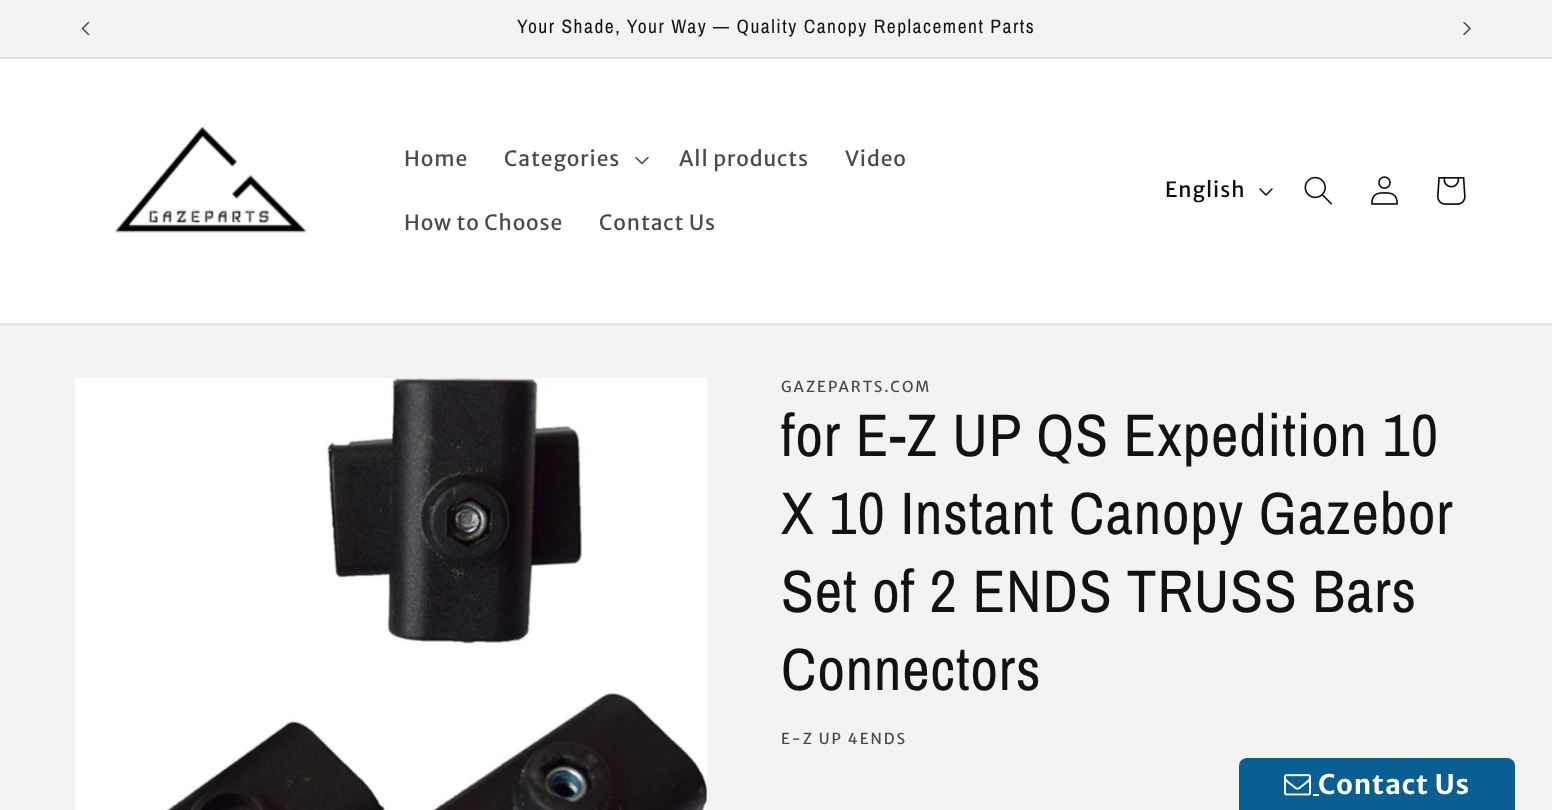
<svg xmlns="http://www.w3.org/2000/svg" width="1552" height="810">
	<rect width="100%" height="100%" fill="#FFFFFF" />
	<rect x="0" y="323" width="1552" height="1" fill="#EBEBEB" />
	<rect x="0" y="0" width="1552" height="57" fill="#F3F3F3" />
	<rect x="0" y="57" width="1552" height="2" fill="#E1E1E1" />
	<image x="81" y="21" width="9" height="15" href="assets/img1.png" />
	<text x="517" y="33" font-family="Archivo Narrow" font-size="19.5" letter-spacing="1.5" fill="#121212">Your Shade, Your Way — Quality Canopy Replacement Parts</text>
	<image x="1463" y="21" width="8" height="15" href="assets/img2.png" />
	<image x="115" y="127" width="192" height="106" href="assets/img3.png" />
	<g font-family="Merriweather Sans" font-size="21" letter-spacing="0.9" fill="#4A4A4A">
		<text x="404" y="166">Home</text>
		<text x="504" y="166">Categories</text>
	</g>
	<image x="635" y="156" width="14" height="9" href="assets/img4.png" />
	<g font-family="Merriweather Sans" font-size="21" letter-spacing="0.9" fill="#4A4A4A">
		<text x="679" y="166">All products</text>
		<text x="845" y="166">Video</text>
		<text x="404" y="230">How to Choose</text>
		<text x="599" y="230">Contact Us</text>
	</g>
	<text x="1165" y="197" font-family="Merriweather Sans" font-size="21" letter-spacing="0.9" fill="#0B0B0B">English</text>
	<image x="1259" y="188" width="14" height="8" href="assets/img5.png" />
	<image x="1304" y="176" width="28" height="29" href="assets/img6.png" />
	<image x="1371" y="176" width="27" height="29" href="assets/img7.png" />
	<image x="1437" y="177" width="29" height="28" href="assets/img8.png" />
	<rect x="0" y="325" width="1552" height="485" fill="#F3F3F3" />
	<rect x="0" y="324" width="1552" height="1" fill="#E0E0E0" />
	<image x="75" y="378" width="632" height="432" href="assets/img9.png" />
	<image x="167" y="378" width="540" height="432" href="assets/img10.png" />
	<text x="781" y="392" font-family="Merriweather Sans" font-size="15" letter-spacing="2" fill="#4A4A4A">GAZEPARTS.COM</text>
	<g font-family="Archivo Narrow" font-size="60" letter-spacing="0.9" fill="#121212">
		<text x="781" y="456">for E-Z UP QS Expedition 10</text>
		<text x="781" y="534">X 10 Instant Canopy Gazebor</text>
		<text x="781" y="612">Set of 2 ENDS TRUSS Bars</text>
		<text x="781" y="690">Connectors</text>
	</g>
	<text x="781" y="744" font-family="Merriweather Sans" font-size="15" letter-spacing="2" fill="#4A4A4A">E-Z UP 4ENDS</text>
	<path d="M1247 758H1507C1511.5 758 1515 761.5 1515 766V810H1239V766C1239 761.5 1242.5 758 1247 758Z" fill="#095F91" />
	<image x="1284" y="774" width="27" height="22" href="assets/img11.png" />
	<rect x="1313" y="794" width="6" height="2" fill="#FFFFFF" />
	<text x="1318" y="794" font-family="Merriweather Sans" font-size="27" font-weight="700" letter-spacing="0.9" fill="#FFFFFF">Contact Us</text>
</svg>
